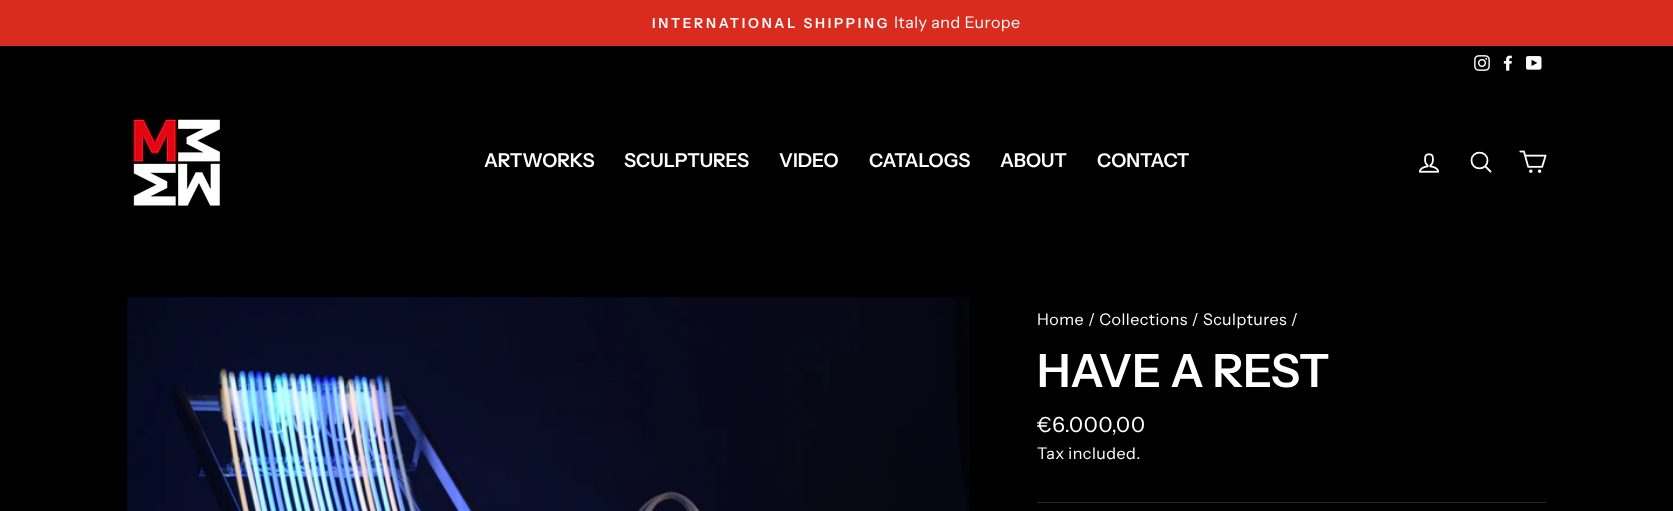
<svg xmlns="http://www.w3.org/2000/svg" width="1673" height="511">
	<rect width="100%" height="100%" fill="#000000" />
	<rect x="0" y="0" width="1673" height="46" fill="#D92B1E" />
	<text x="652" y="28" font-family="Instrument Sans" font-size="13.75" font-weight="600" letter-spacing="2.75" fill="#FFFFFF">INTERNATIONAL SHIPPING</text>
	<text x="894" y="28" font-family="Instrument Sans" font-size="16.1" letter-spacing="0.5" fill="#FFFFFF">Italy and Europe</text>
	<image x="1474" y="55" width="16" height="16" href="assets/img1.png" />
	<image x="1503" y="55" width="9" height="16" href="assets/img2.png" />
	<image x="1526" y="56" width="16" height="14" href="assets/img3.png" />
	<image x="127" y="117" width="95" height="91" href="assets/img4.png" />
	<g font-family="Instrument Sans" font-size="19" font-weight="600" fill="#FFFFFF">
		<text x="484" y="167">ARTWORKS</text>
		<text x="624" y="167">SCULPTURES</text>
		<text x="779" y="167">VIDEO</text>
		<text x="869" y="167">CATALOGS</text>
		<text x="1000" y="167">ABOUT</text>
		<text x="1097" y="167">CONTACT</text>
	</g>
	<image x="1418" y="153" width="22" height="20" href="assets/img5.png" />
	<path d="M1487.5 160.5C1487.5 171 1471.5 171 1471.5 160.5C1471.5 150 1487.5 150 1487.5 160.5ZM1490.5 171.5L1485.5 166.5" fill="none" stroke="#FFFFFF" stroke-width="1.8" stroke-linecap="round" stroke-linejoin="round" />
	<image x="1519" y="150" width="28" height="23" href="assets/img6.png" />
	<image x="127" y="297" width="843" height="214" href="assets/img7.png" />
	<text x="1037" y="325" font-family="Instrument Sans" font-size="16.1" letter-spacing="0.5" fill="#FFFFFF">Home / Collections / Sculptures /</text>
	<text x="1037" y="387" font-family="Instrument Sans" font-size="46" font-weight="600" fill="#FFFFFF">HAVE A REST</text>
	<text x="1037" y="432" font-family="Instrument Sans" font-size="21" letter-spacing="0.5" fill="#FFFFFF">€6.000,00</text>
	<text x="1037" y="459" font-family="Instrument Sans" font-size="16.1" letter-spacing="0.5" fill="#FFFFFF">Tax included.</text>
	<rect x="1037" y="502" width="509" height="1" fill="#2B2A27" />
</svg>
